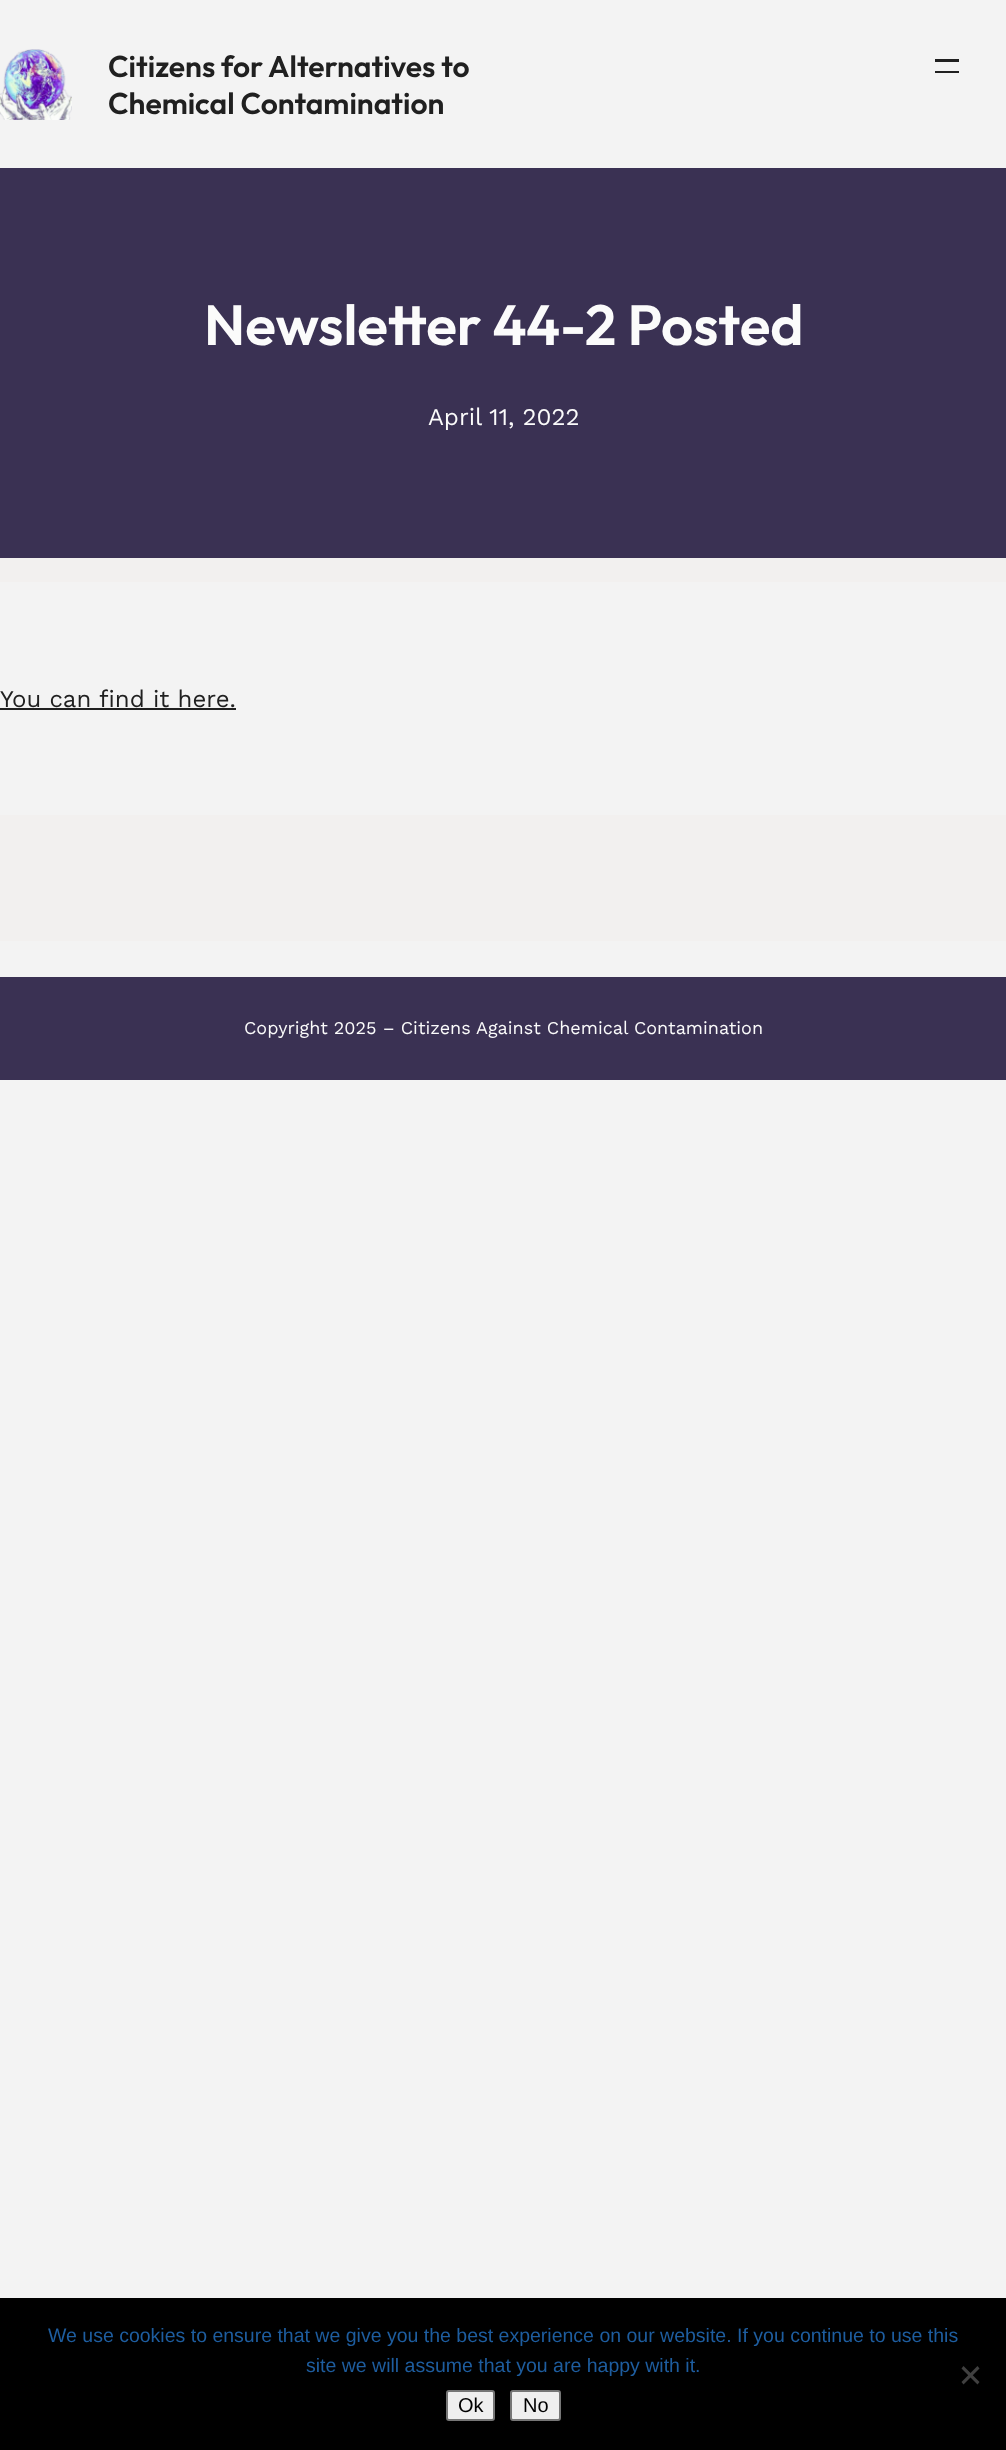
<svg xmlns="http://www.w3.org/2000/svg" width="1006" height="2450">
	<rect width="100%" height="100%" fill="#F3F3F3" />
	<image x="0" y="49" width="72" height="71" href="assets/img1.png" />
	<g font-family="Outfit" font-size="30" font-weight="600" fill="#202020">
		<text x="108" y="77">Citizens for Alternatives to</text>
		<text x="108" y="114">Chemical Contamination</text>
	</g>
	<rect x="935" y="59" width="24" height="3" fill="#202020" />
	<rect x="935" y="71" width="24" height="2" fill="#202020" />
	<rect x="0" y="168" width="1006" height="390" fill="#3A3153" />
	<rect x="0" y="558" width="1006" height="24" fill="#F2F0EF" />
	<text x="204" y="345" font-family="Outfit" font-size="56.6" font-weight="600" fill="#FBFBFB">Newsletter 44-2 Posted</text>
	<text x="428" y="425" font-family="Work Sans" font-size="24" fill="#FBFBFB">April 11, 2022</text>
	<text x="0" y="707" font-family="Work Sans" font-size="24" fill="#202020">You can find it here.</text>
	<rect x="0" y="708" width="236" height="2" fill="#202020" />
	<rect x="0" y="815" width="1006" height="126" fill="#F2F0EF" />
	<rect x="0" y="977" width="1006" height="103" fill="#3A3153" />
	<text x="244" y="1034" font-family="Work Sans" font-size="18" fill="#FBFBFB">Copyright 2025 – Citizens Against Chemical Contamination</text>
	<rect x="0" y="2298" width="1006" height="152" fill="#000000" />
	<g font-family="Liberation Sans" font-size="19.5" fill="#1E5D9F">
		<text x="48" y="2342">We use cookies to ensure that we give you the best experience on our website. If you continue to use this</text>
		<text x="306" y="2372">site we will assume that you are happy with it.</text>
	</g>
	<path d="M977.5 2366L979.5 2368.5L963.5 2384.5L961.5 2382Z" fill="#404040" />
	<path d="M961.5 2368.5L963.5 2366L979.5 2382L977.5 2384.5Z" fill="#404040" />
	<rect x="447" y="2391" width="47" height="29" rx="2" fill="#EFEFEF" stroke="#767676" stroke-width="2" />
	<text x="458" y="2412" font-family="Liberation Sans" font-size="20" fill="#000000">Ok</text>
	<rect x="511" y="2391" width="49" height="29" rx="2" fill="#EFEFEF" stroke="#767676" stroke-width="2" />
	<text x="523" y="2412" font-family="Liberation Sans" font-size="20" fill="#000000">No</text>
</svg>
